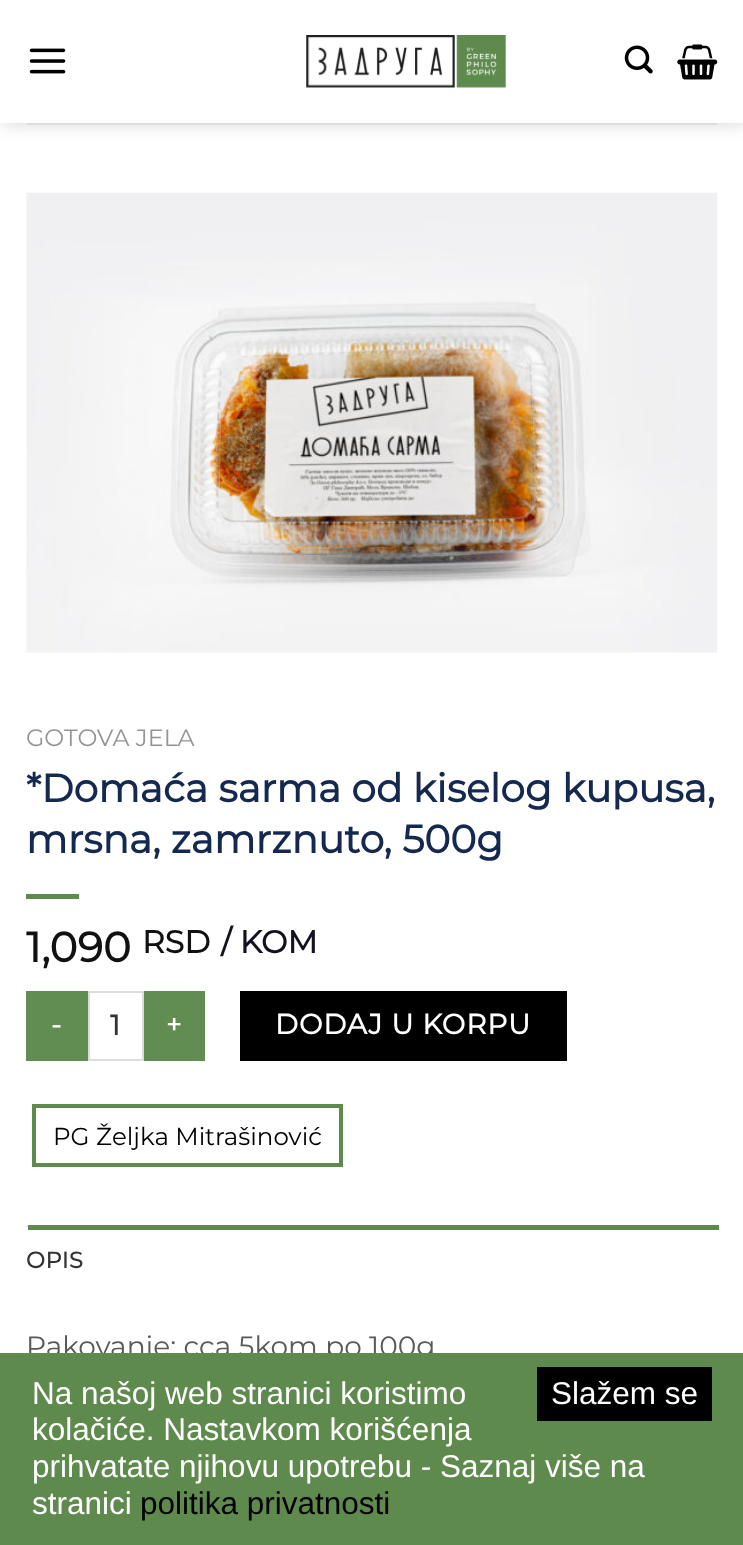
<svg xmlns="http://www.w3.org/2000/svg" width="743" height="1545">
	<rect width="100%" height="100%" fill="#FFFFFF" />
	<rect x="2" y="2" width="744" height="122" fill="#000000" fill-opacity="0.15" filter="blur(9px)" />
	<rect x="0" y="0" width="743" height="123" fill="#FFFFFF" />
	<image x="29" y="48" width="37" height="26" href="assets/img1.png" />
	<image x="306" y="35" width="200" height="53" href="assets/img2.png" />
	<image x="624" y="45" width="29" height="29" href="assets/img3.png" />
	<image x="677" y="44" width="41" height="36" href="assets/img4.png" />
	<rect x="26" y="123" width="692" height="2" fill="#DDDDDD" />
	<image x="26" y="192" width="692" height="461" href="assets/img5.png" />
	<text x="26" y="746" font-family="Montserrat" font-size="23.75" font-weight="100" fill="#949494">GOTOVA JELA</text>
	<g font-family="Montserrat" font-size="39.25" font-weight="700" fill="#142850">
		<text x="26" y="802">*Domaća sarma od kiselog kupusa,</text>
		<text x="26" y="853">mrsna, zamrznuto, 500g</text>
	</g>
	<rect x="26" y="894" width="53" height="5" fill="#5E8A4D" />
	<text x="26" y="962" font-family="Montserrat" font-size="42" font-weight="700" fill="#111111">1,090</text>
	<text x="142" y="953" font-family="Montserrat" font-size="31.5" font-weight="700" fill="#111111">RSD</text>
	<text x="221" y="953" font-family="Montserrat" font-size="31.5" font-weight="700" fill="#11111F">/ KOM</text>
	<rect x="26" y="991" width="62" height="70" fill="#628D52" />
	<text x="51" y="1034" font-family="Montserrat" font-size="27" font-weight="700" letter-spacing="1" fill="#FFFFFF">-</text>
	<rect x="89" y="992" width="54" height="68" fill="none" stroke="#DDDDDD" stroke-width="2" />
	<text x="110" y="1035" font-family="Montserrat" font-size="28" font-weight="700" fill="#333333">1</text>
	<rect x="144" y="991" width="61" height="70" fill="#628D52" />
	<text x="166" y="1034" font-family="Montserrat" font-size="27" font-weight="700" letter-spacing="1" fill="#FFFFFF">+</text>
	<rect x="240" y="991" width="327" height="70" fill="#000000" />
	<text x="275" y="1034" font-family="Montserrat" font-size="28" font-weight="700" letter-spacing="0.8" fill="#FFFFFF">DODAJ U KORPU</text>
	<rect x="34" y="1106" width="307" height="59" fill="none" stroke="#5E8A4D" stroke-width="4" />
	<text x="53" y="1145" font-family="Montserrat" font-size="24.5" font-weight="100" fill="#000000">PG Željka Mitrašinović</text>
	<rect x="26" y="1225" width="2" height="2" fill="#ECECEC" />
	<rect x="28" y="1225" width="691" height="5" fill="#5E8A4D" />
	<text x="26" y="1268" font-family="Montserrat" font-size="22.5" font-weight="700" letter-spacing="0.5" fill="#333333">OPIS</text>
	<text x="26" y="1356" font-family="Montserrat" font-size="28" font-weight="100" fill="#595959">Pakovanje: cca 5kom po 100g</text>
	<rect x="0" y="1353" width="743" height="192" fill="#5E8A4D" />
	<g font-family="Liberation Sans" font-size="31.5" fill="#FFFFFF">
		<text x="32" y="1404">Na našoj web stranici koristimo</text>
		<text x="32" y="1440">kolačiće. Nastavkom korišćenja</text>
		<text x="32" y="1477">prihvatate njihovu upotrebu - Saznaj više na</text>
		<text x="32" y="1514">stranici</text>
	</g>
	<text x="140" y="1514" font-family="Liberation Sans" font-size="31.5" fill="#000000">politika privatnosti</text>
	<rect x="537" y="1367" width="175" height="54" fill="#000000" />
	<text x="551" y="1404" font-family="Liberation Sans" font-size="31.5" fill="#FFFFFF">Slažem se</text>
</svg>
